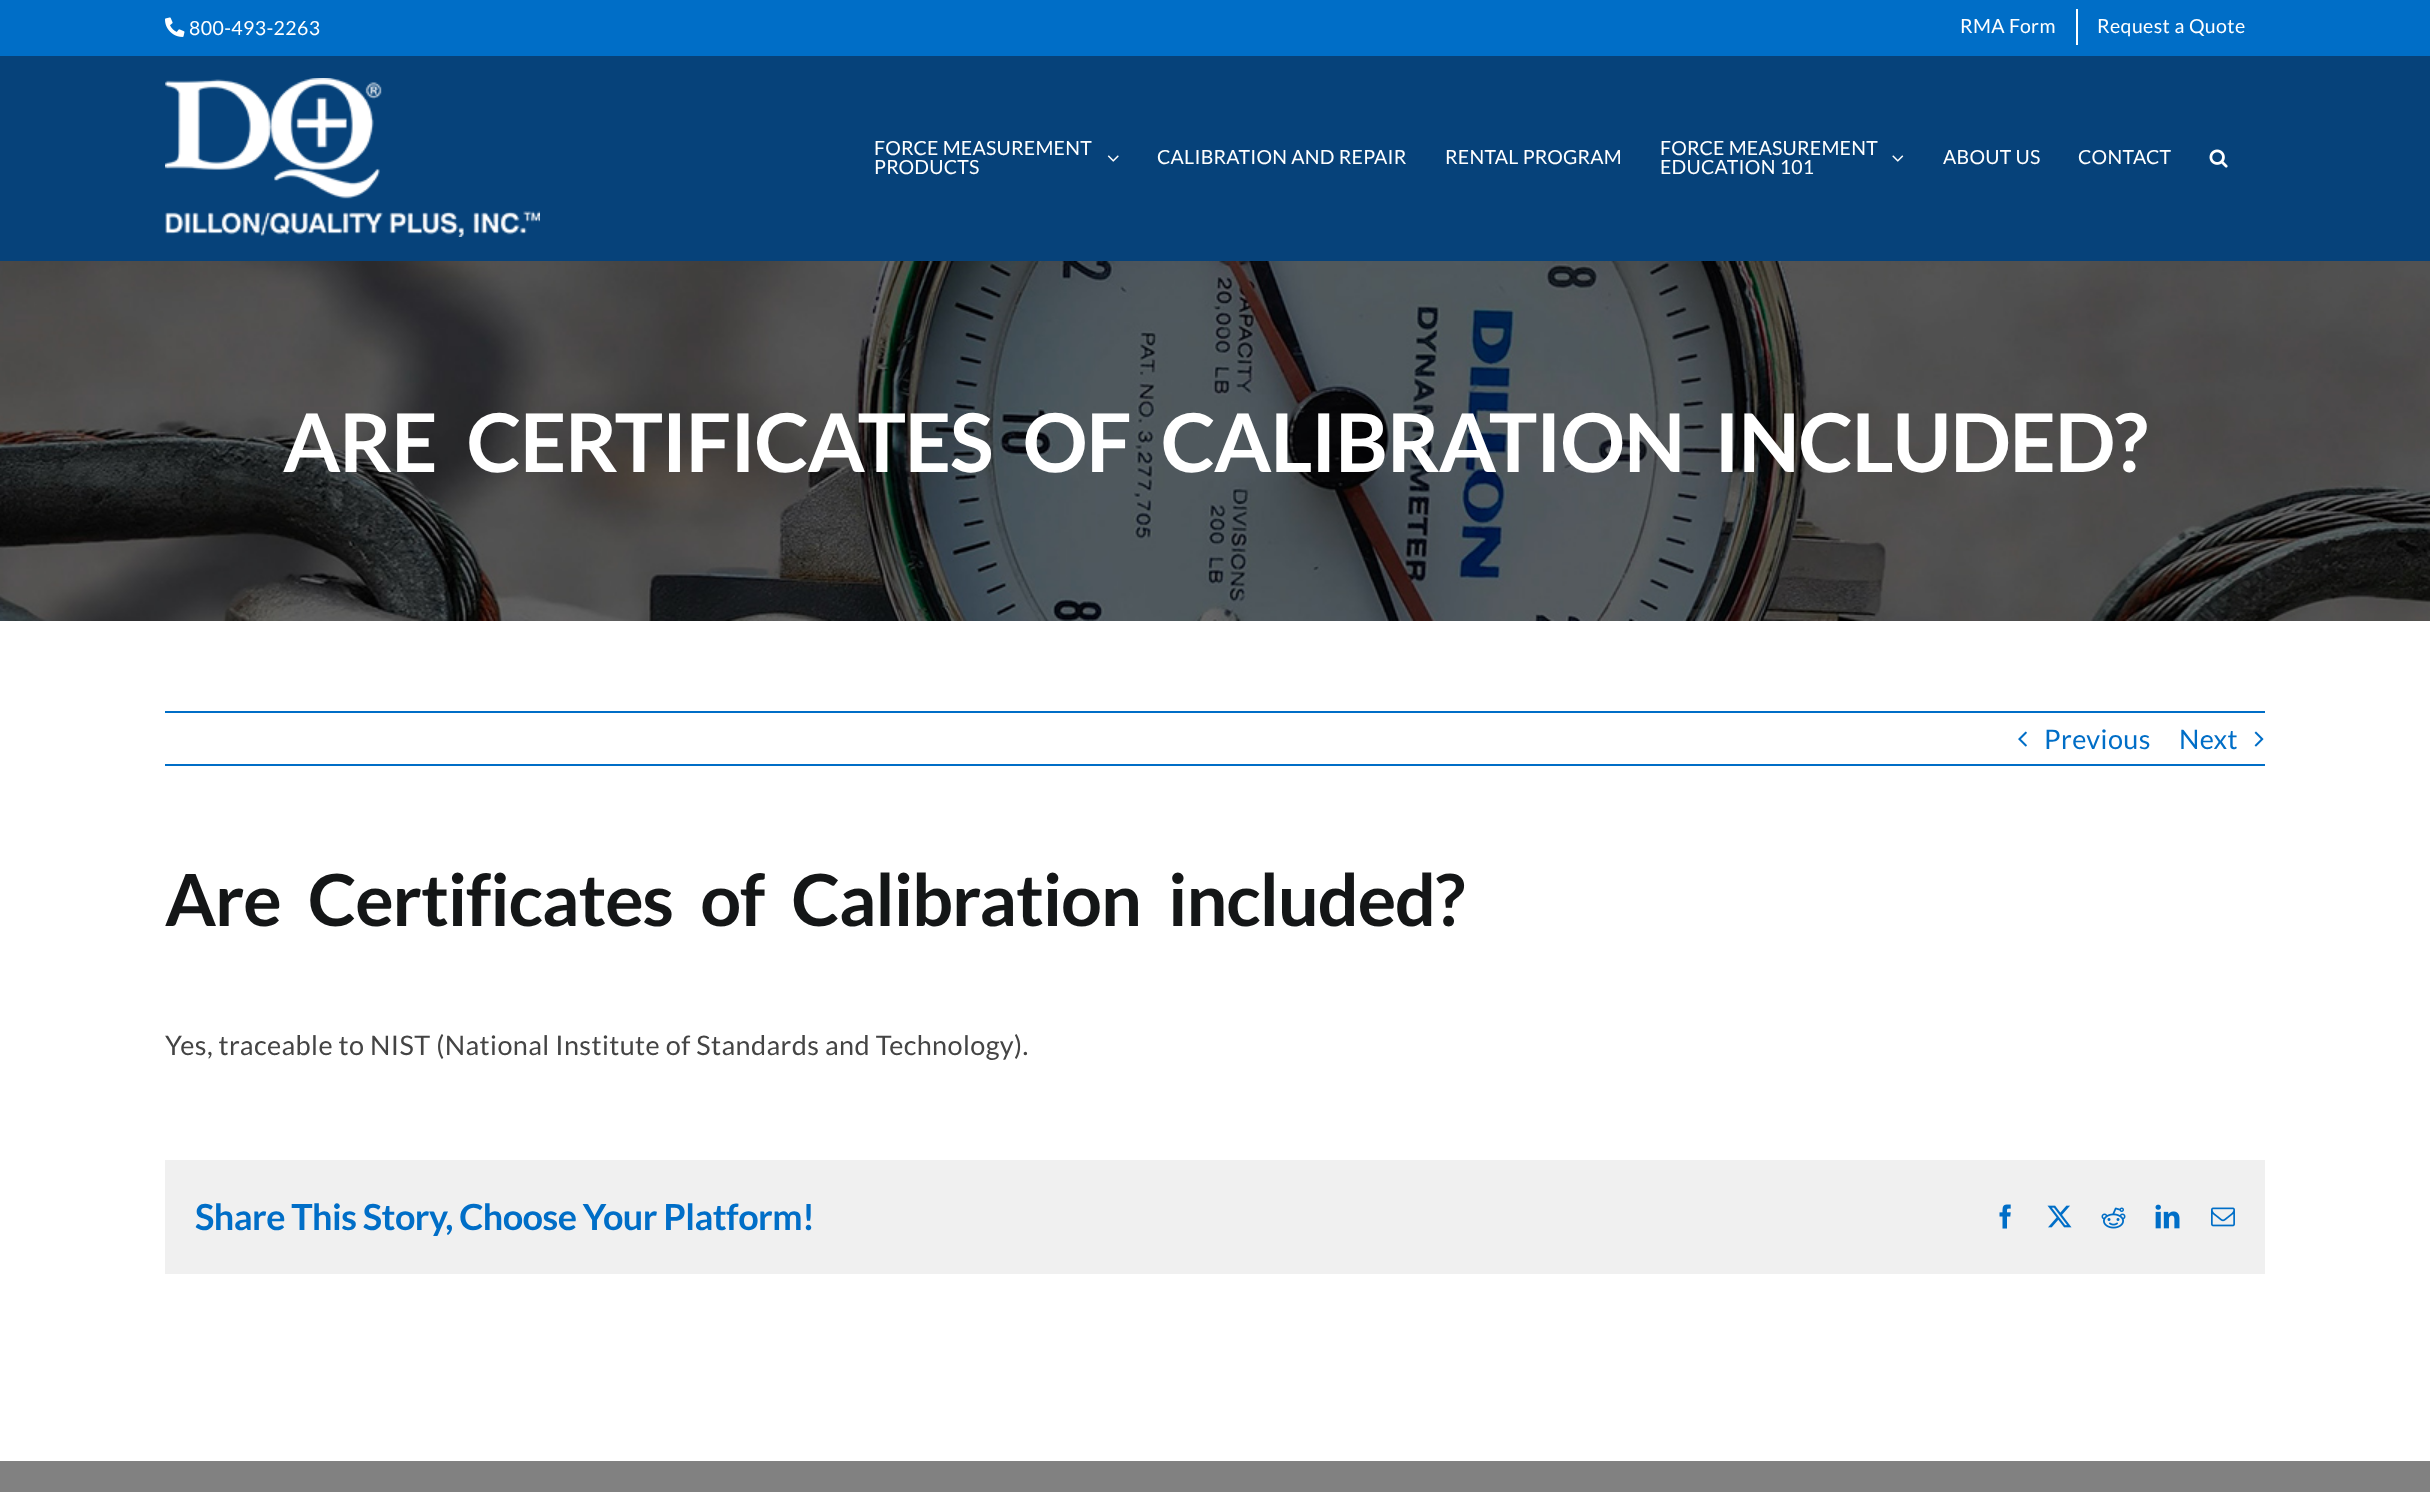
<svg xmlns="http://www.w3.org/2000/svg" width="2430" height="1492">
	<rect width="100%" height="100%" fill="#FFFFFF" />
	<rect x="0" y="0" width="2430" height="56" fill="#006EC7" />
	<image x="165" y="17" width="20" height="20" href="assets/img1.png" />
	<g font-family="Lato" font-size="19.5" letter-spacing="0.4" fill="#FFFFFF">
		<text x="189" y="35">800-493-2263</text>
		<text x="1960" y="33">RMA Form</text>
	</g>
	<rect x="2076" y="9" width="2" height="36" fill="#FFFFFF" />
	<text x="2097" y="33" font-family="Lato" font-size="19.5" letter-spacing="0.4" fill="#FFFFFF">Request a Quote</text>
	<rect x="0" y="56" width="2430" height="205" fill="#06427A" />
	<image x="165" y="78" width="375" height="159" href="assets/img2.png" />
	<g font-family="Lato" font-size="19.5" letter-spacing="0.25" fill="#FFFFFF">
		<text x="874" y="155">FORCE MEASUREMENT</text>
		<text x="874" y="174">PRODUCTS</text>
	</g>
	<image x="1107" y="155" width="12" height="7" href="assets/img3.png" />
	<g font-family="Lato" font-size="19.5" letter-spacing="0.25" fill="#FFFFFF">
		<text x="1157" y="164">CALIBRATION AND REPAIR</text>
		<text x="1445" y="164">RENTAL PROGRAM</text>
		<text x="1660" y="155">FORCE MEASUREMENT</text>
		<text x="1660" y="174">EDUCATION 101</text>
	</g>
	<image x="1892" y="155" width="12" height="7" href="assets/img4.png" />
	<g font-family="Lato" font-size="19.5" letter-spacing="0.25" fill="#FFFFFF">
		<text x="1943" y="164">ABOUT US</text>
		<text x="2078" y="164">CONTACT</text>
	</g>
	<image x="2209" y="149" width="19" height="19" href="assets/img5.png" />
	<image x="0" y="261" width="2430" height="360" href="assets/img6.png" />
	<text x="283" y="472" word-spacing="16" font-family="Lato" font-size="81" font-weight="700" letter-spacing="-1.2" fill="#FFFFFF">ARE CERTIFICATES OF CALIBRATION INCLUDED?</text>
	<rect x="165" y="711" width="2100" height="2" fill="#006EC7" />
	<rect x="165" y="764" width="2100" height="2" fill="#006EC7" />
	<image x="2018" y="731" width="9" height="16" href="assets/img7.png" />
	<g font-family="Lato" font-size="27" letter-spacing="0.4" fill="#006EC7">
		<text x="2044" y="749">Previous</text>
		<text x="2179" y="749">Next</text>
	</g>
	<image x="2254" y="731" width="10" height="16" href="assets/img8.png" />
	<text x="165" y="926" word-spacing="14.5" font-family="Lato" font-size="72" font-weight="700" letter-spacing="-1.1" fill="#141617">Are Certificates of Calibration included?</text>
	<text x="165" y="1055" font-family="Lato" font-size="27" letter-spacing="0.4" fill="#444444">Yes, traceable to NIST (National Institute of Standards and Technology).</text>
	<rect x="165" y="1160" width="2100" height="114" fill="#F0F0F0" />
	<text x="195" y="1230" font-family="Lato" font-size="36" font-weight="700" letter-spacing="-0.55" fill="#006EC7">Share This Story, Choose Your Platform!</text>
	<image x="1999" y="1204" width="12" height="25" href="assets/img9.png" />
	<image x="2047" y="1205" width="25" height="23" href="assets/img10.png" />
	<image x="2101" y="1207" width="25" height="22" href="assets/img11.png" />
	<image x="2155" y="1204" width="25" height="25" href="assets/img12.png" />
	<image x="2211" y="1207" width="24" height="20" href="assets/img13.png" />
	<rect x="0" y="1461" width="2430" height="31" fill="#818181" />
</svg>
